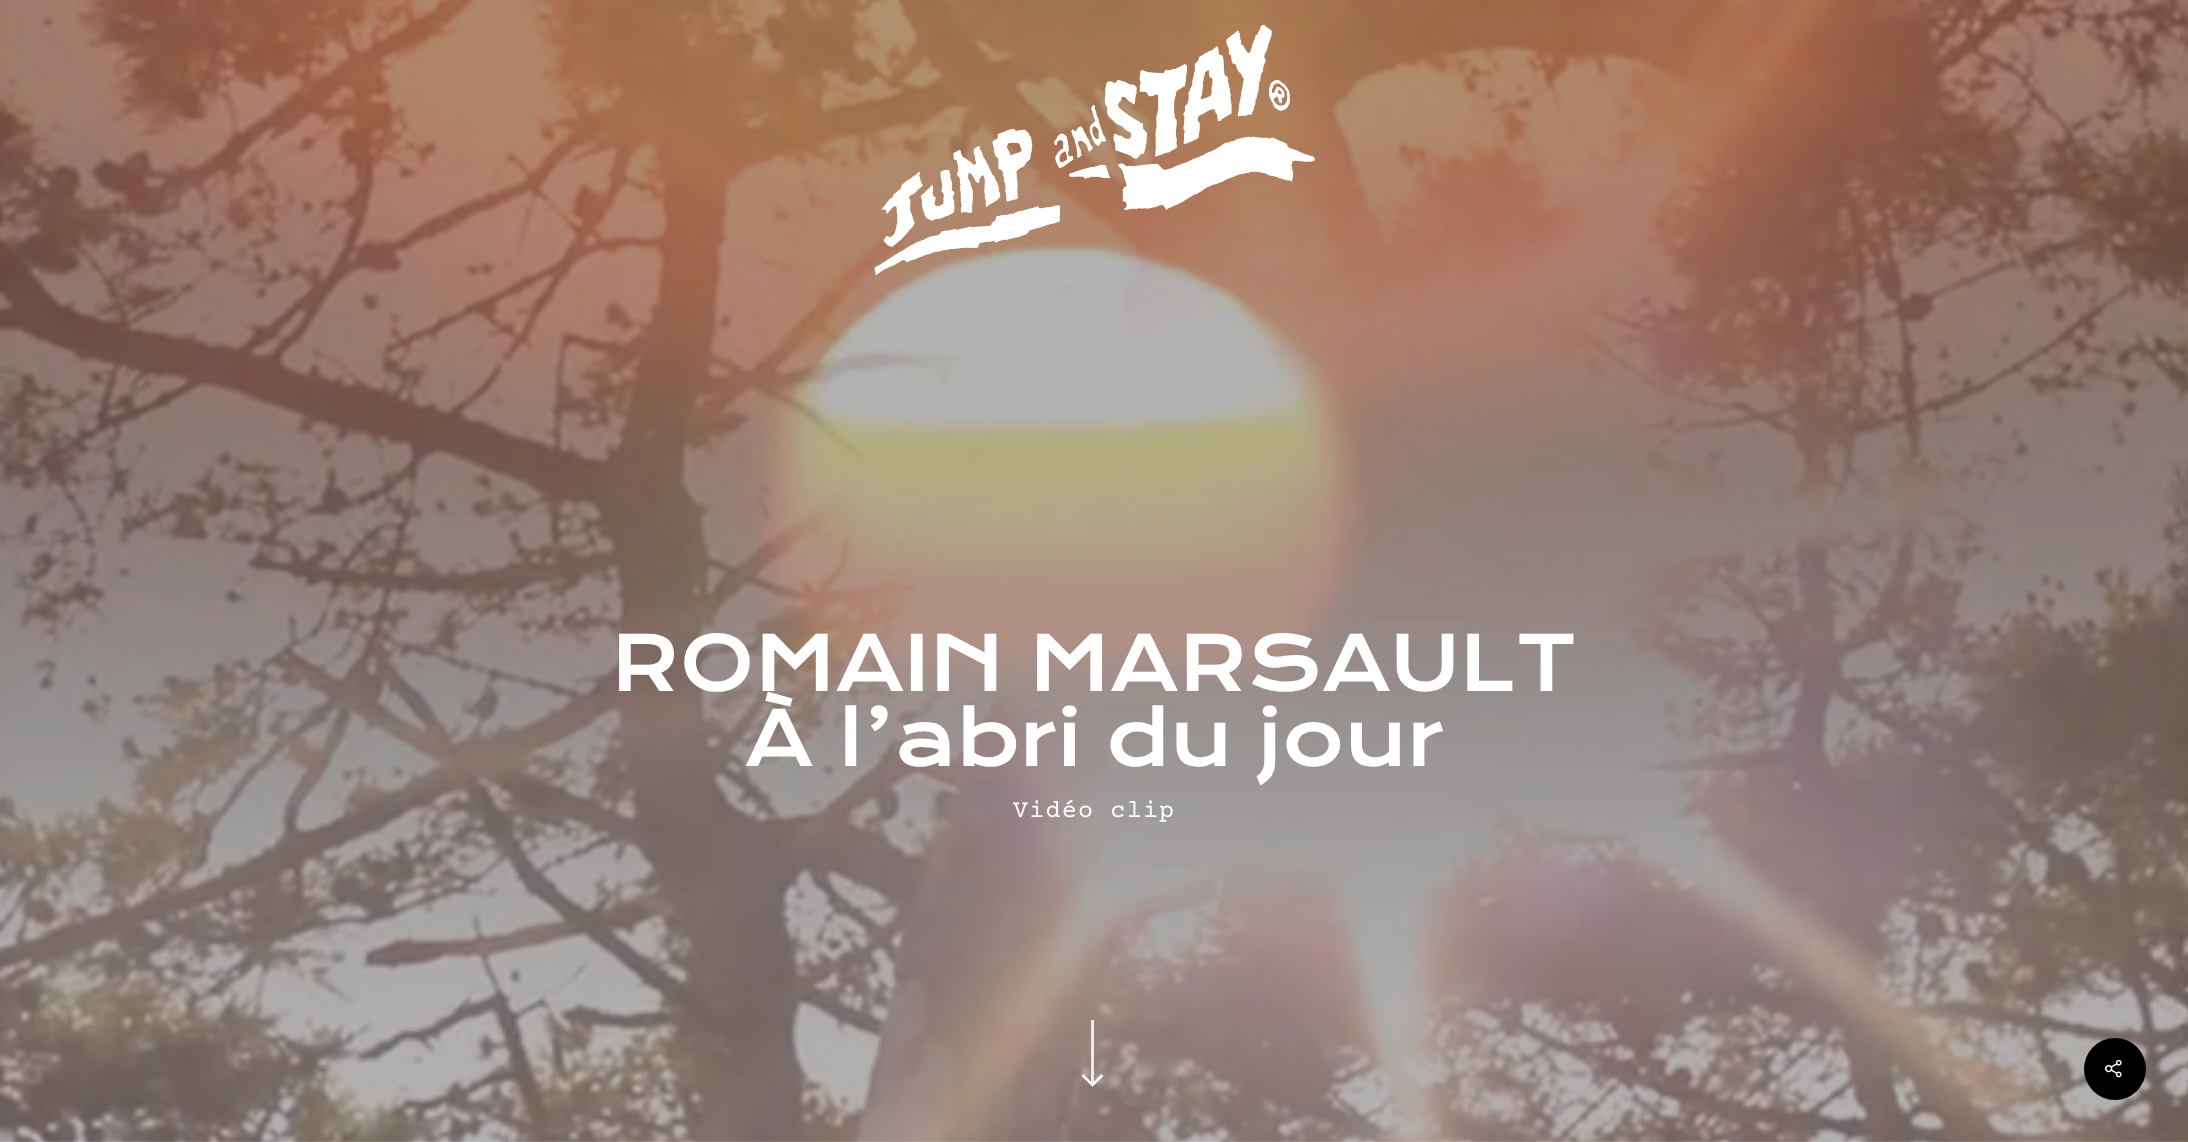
<svg xmlns="http://www.w3.org/2000/svg" width="2188" height="1142">
	<rect width="100%" height="100%" fill="#FFFFFF" />
	<image x="0" y="0" width="2188" height="1142" href="assets/img2.png" />
	<image x="874" y="25" width="441" height="250" href="assets/img1.png" />
	<g font-family="Krona One" font-size="75" fill="#FFFFFF">
		<text x="611" y="691">ROMAIN MARSAULT</text>
		<text x="745" y="766">À l’abri du jour</text>
	</g>
	<text x="1013" y="817" font-family="Courier Prime" font-size="25" letter-spacing="1.25" fill="#FFFFFF">Vidéo clip</text>
	<rect x="1091" y="1020" width="3" height="64" fill="#FFFFFF" fill-opacity="0.83" />
	<path d="M1082.5 1075L1092.5 1085L1102.5 1075" fill="none" stroke="#FFFFFF" stroke-width="2.5" />
	<circle cx="2115" cy="1069" r="31" fill="#000000" />
	<image x="2105" y="1059" width="17" height="19" href="assets/img3.png" />
</svg>
